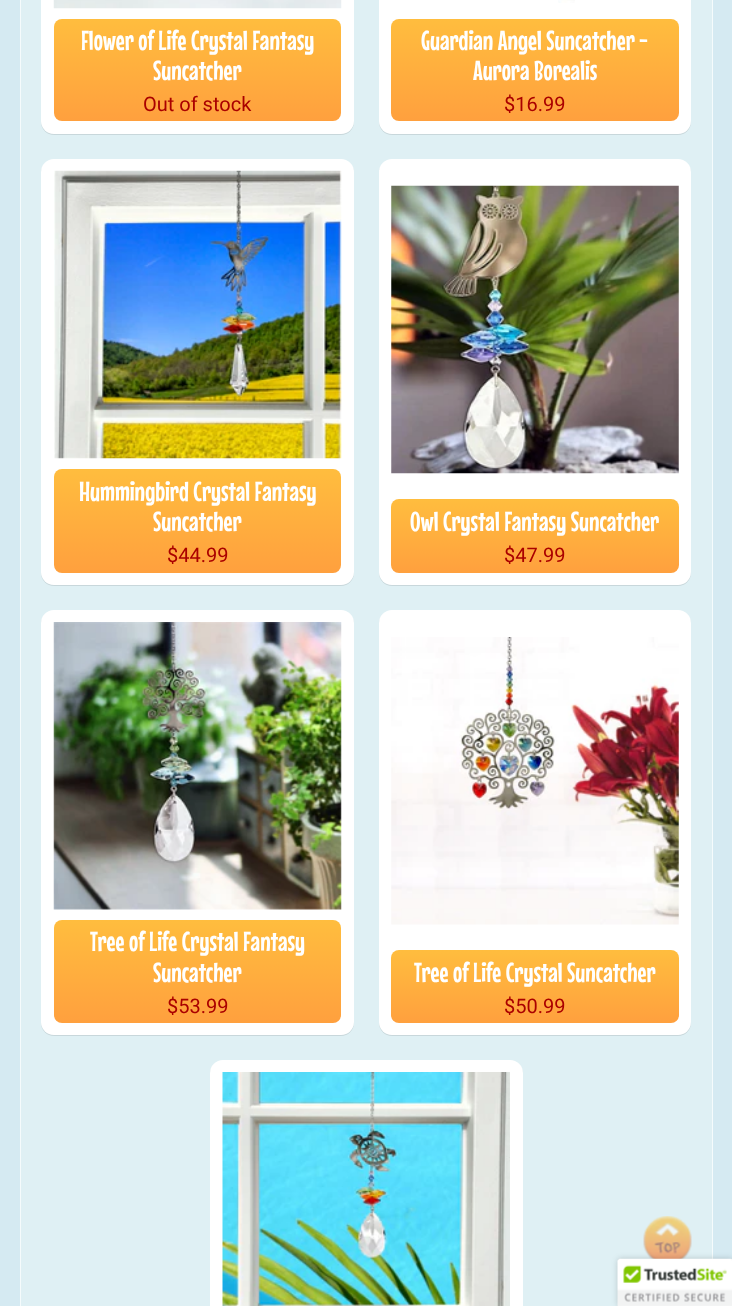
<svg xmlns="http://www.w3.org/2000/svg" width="732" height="1306">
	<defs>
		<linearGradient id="g1" gradientUnits="userSpaceOnUse" x1="198" y1="19" x2="198" y2="121"><stop offset="0" stop-color="#FFBD3E" /><stop offset="1" stop-color="#FFA03E" /></linearGradient>
		<linearGradient id="g2" gradientUnits="userSpaceOnUse" x1="535" y1="19" x2="535" y2="121"><stop offset="0" stop-color="#FFBD3E" /><stop offset="1" stop-color="#FFA03E" /></linearGradient>
		<linearGradient id="g3" gradientUnits="userSpaceOnUse" x1="198" y1="469" x2="198" y2="573"><stop offset="0" stop-color="#FFBD3E" /><stop offset="1" stop-color="#FFA03E" /></linearGradient>
		<linearGradient id="g4" gradientUnits="userSpaceOnUse" x1="535" y1="499" x2="535" y2="573"><stop offset="0" stop-color="#FFBD3E" /><stop offset="1" stop-color="#FFA03E" /></linearGradient>
		<linearGradient id="g5" gradientUnits="userSpaceOnUse" x1="198" y1="920" x2="198" y2="1023"><stop offset="0" stop-color="#FFBD3E" /><stop offset="1" stop-color="#FFA03E" /></linearGradient>
		<linearGradient id="g6" gradientUnits="userSpaceOnUse" x1="535" y1="950" x2="535" y2="1023"><stop offset="0" stop-color="#FFBD3E" /><stop offset="1" stop-color="#FFA03E" /></linearGradient>
	</defs>
	<rect width="100%" height="100%" fill="#D5EAF2" />
	<rect x="20.5" y="-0.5" width="692" height="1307" fill="#DFF0F4" stroke="#F5FBFC" />
	<rect x="41" y="-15" width="313" height="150" rx="13" fill="#000000" fill-opacity="0.1" filter="blur(0.5px)" />
	<rect x="41" y="-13" width="313" height="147" rx="13" fill="#FFFFFF" />
	<image x="53" y="0" width="289" height="9" href="assets/img1.png" />
	<rect x="54" y="19" width="287" height="102" rx="8" fill="url(#g1)" />
	<g font-family="Mouse Memoirs" font-size="27.5" fill="#FFFFFF">
		<text x="81" y="50">Flower of Life Crystal Fantasy</text>
		<text x="153" y="80">Suncatcher</text>
	</g>
	<text x="143" y="111" font-family="Roboto" font-size="20" fill="#AA0000">Out of stock</text>
	<rect x="379" y="-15" width="312" height="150" rx="13" fill="#000000" fill-opacity="0.1" filter="blur(0.5px)" />
	<rect x="379" y="-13" width="312" height="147" rx="13" fill="#FFFFFF" />
	<image x="558" y="0" width="17" height="3" href="assets/img2.png" />
	<rect x="391" y="19" width="288" height="102" rx="8" fill="url(#g2)" />
	<g font-family="Mouse Memoirs" font-size="27.5" fill="#FFFFFF">
		<text x="421" y="50">Guardian Angel Suncatcher -</text>
		<text x="473" y="80">Aurora Borealis</text>
	</g>
	<text x="504" y="111" font-family="Roboto" font-size="20" fill="#AA0000">$16.99</text>
	<rect x="41" y="160" width="313" height="426" rx="13" fill="#000000" fill-opacity="0.1" filter="blur(0.5px)" />
	<rect x="41" y="159" width="313" height="426" rx="13" fill="#FFFFFF" />
	<image x="54" y="170" width="288" height="289" href="assets/img3.png" />
	<rect x="54" y="469" width="287" height="104" rx="8" fill="url(#g3)" />
	<g font-family="Mouse Memoirs" font-size="27.5" fill="#FFFFFF">
		<text x="79" y="501">Hummingbird Crystal Fantasy</text>
		<text x="153" y="531">Suncatcher</text>
	</g>
	<text x="167" y="562" font-family="Roboto" font-size="20" fill="#AA0000">$44.99</text>
	<rect x="379" y="160" width="312" height="426" rx="13" fill="#000000" fill-opacity="0.1" filter="blur(0.5px)" />
	<rect x="379" y="159" width="312" height="426" rx="13" fill="#FFFFFF" />
	<image x="391" y="185" width="288" height="289" href="assets/img4.png" />
	<rect x="391" y="499" width="288" height="74" rx="8" fill="url(#g4)" />
	<text x="410" y="531" font-family="Mouse Memoirs" font-size="27.5" fill="#FFFFFF">Owl Crystal Fantasy Suncatcher</text>
	<text x="504" y="562" font-family="Roboto" font-size="20" fill="#AA0000">$47.99</text>
	<rect x="41" y="611" width="313" height="425" rx="13" fill="#000000" fill-opacity="0.1" filter="blur(0.5px)" />
	<rect x="41" y="610" width="313" height="425" rx="13" fill="#FFFFFF" />
	<image x="53" y="622" width="289" height="288" href="assets/img5.png" />
	<rect x="54" y="920" width="287" height="103" rx="8" fill="url(#g5)" />
	<g font-family="Mouse Memoirs" font-size="27.5" fill="#FFFFFF">
		<text x="90" y="951">Tree of Life Crystal Fantasy</text>
		<text x="153" y="982">Suncatcher</text>
	</g>
	<text x="167" y="1013" font-family="Roboto" font-size="20" fill="#AA0000">$53.99</text>
	<rect x="379" y="611" width="312" height="425" rx="13" fill="#000000" fill-opacity="0.1" filter="blur(0.5px)" />
	<rect x="379" y="610" width="312" height="425" rx="13" fill="#FFFFFF" />
	<image x="391" y="637" width="288" height="288" href="assets/img6.png" />
	<rect x="391" y="950" width="288" height="73" rx="8" fill="url(#g6)" />
	<text x="414" y="982" font-family="Mouse Memoirs" font-size="27.5" fill="#FFFFFF">Tree of Life Crystal Suncatcher</text>
	<text x="504" y="1013" font-family="Roboto" font-size="20" fill="#AA0000">$50.99</text>
	<rect x="210" y="1061" width="313" height="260" rx="13" fill="#000000" fill-opacity="0.1" filter="blur(0.5px)" />
	<rect x="210" y="1060" width="313" height="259" rx="13" fill="#FFFFFF" />
	<image x="222" y="1072" width="288" height="234" href="assets/img7.png" />
	<image x="643" y="1216" width="49" height="43" href="assets/img8.png" />
	<rect x="618" y="1259" width="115" height="47" rx="2.5" fill="#000000" fill-opacity="0.2" filter="blur(3px)" />
	<path d="M620.5 1259H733V1306H618V1261.5C618 1260 619 1259 620.5 1259Z" fill="#FFFFFF" />
	<image x="617" y="1258" width="115" height="48" href="assets/img9.png" />
</svg>
